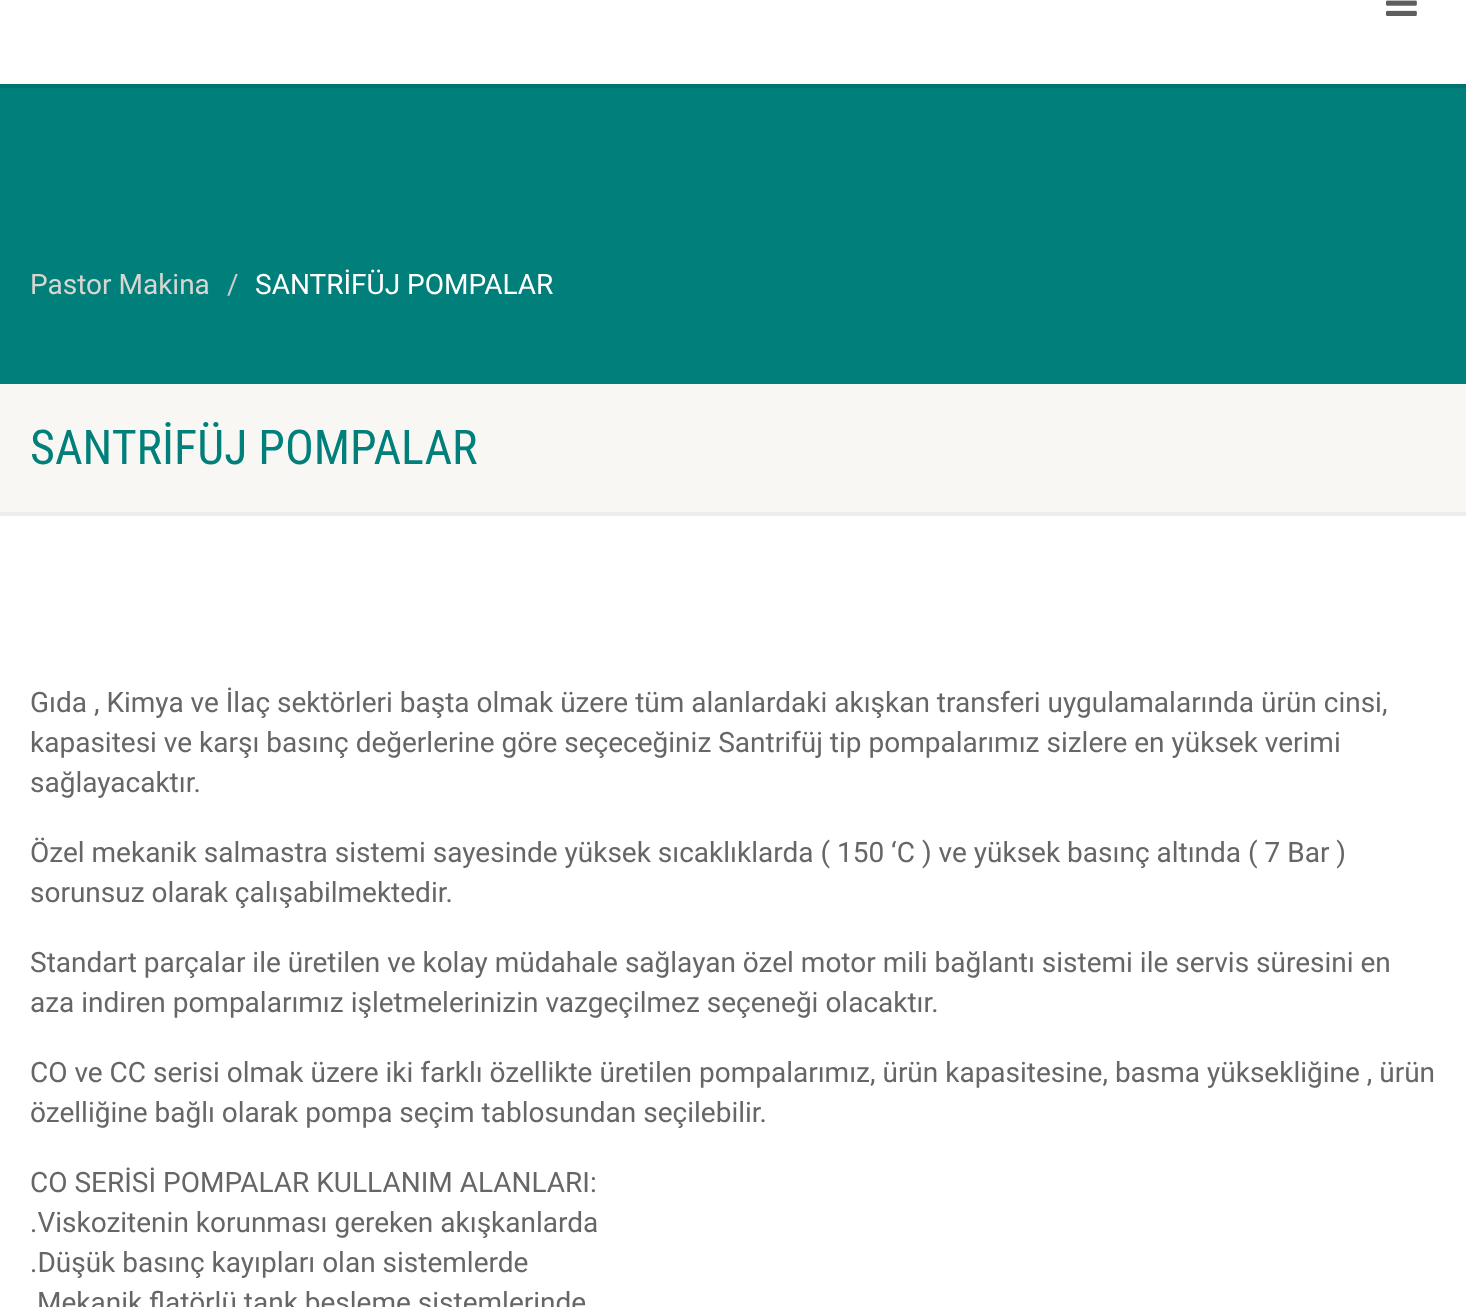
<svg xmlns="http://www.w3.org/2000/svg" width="1466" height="1307">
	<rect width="100%" height="100%" fill="#FFFFFF" />
	<rect x="0" y="84" width="1466" height="4" fill="#00726F" />
	<image x="1386" y="0" width="31" height="16" href="assets/img1.png" />
	<rect x="0" y="88" width="1466" height="296" fill="#007F7B" />
	<text x="30" y="294" font-family="Roboto" font-size="28" fill="#D8D6D1">Pastor Makina</text>
	<text x="227" y="294" font-family="Roboto" font-size="28" fill="#CCCCCC">/</text>
	<text x="255" y="294" font-family="Roboto" font-size="28" fill="#FFFFFF">SANTRİFÜJ POMPALAR</text>
	<rect x="0" y="512" width="1466" height="4" fill="#EDEDED" />
	<rect x="0" y="384" width="1466" height="128" fill="#F8F7F3" />
	<text x="30" y="464" font-family="Roboto Condensed" font-size="48" fill="#007F7B">SANTRİFÜJ POMPALAR</text>
	<g font-family="Roboto" font-size="28" fill="#666666">
		<text x="30" y="712">Gıda , Kimya ve İlaç sektörleri başta olmak üzere tüm alanlardaki akışkan transferi uygulamalarında ürün cinsi,</text>
		<text x="30" y="752">kapasitesi ve karşı basınç değerlerine göre seçeceğiniz Santrifüj tip pompalarımız sizlere en yüksek verimi</text>
		<text x="30" y="792">sağlayacaktır.</text>
		<text x="30" y="862">Özel mekanik salmastra sistemi sayesinde yüksek sıcaklıklarda ( 150 ‘C ) ve yüksek basınç altında ( 7 Bar )</text>
		<text x="30" y="902">sorunsuz olarak çalışabilmektedir.</text>
		<text x="30" y="972">Standart parçalar ile üretilen ve kolay müdahale sağlayan özel motor mili bağlantı sistemi ile servis süresini en</text>
		<text x="30" y="1012">aza indiren pompalarımız işletmelerinizin vazgeçilmez seçeneği olacaktır.</text>
		<text x="30" y="1082">CO ve CC serisi olmak üzere iki farklı özellikte üretilen pompalarımız, ürün kapasitesine, basma yüksekliğine , ürün</text>
		<text x="30" y="1122">özelliğine bağlı olarak pompa seçim tablosundan seçilebilir.</text>
		<text x="30" y="1192">CO SERİSİ POMPALAR KULLANIM ALANLARI:</text>
		<text x="30" y="1232">.Viskozitenin korunması gereken akışkanlarda</text>
		<text x="30" y="1272">.Düşük basınç kayıpları olan sistemlerde</text>
		<text x="37" y="1312">Mekanik flatörlü tank besleme sistemlerinde</text>
	</g>
</svg>
